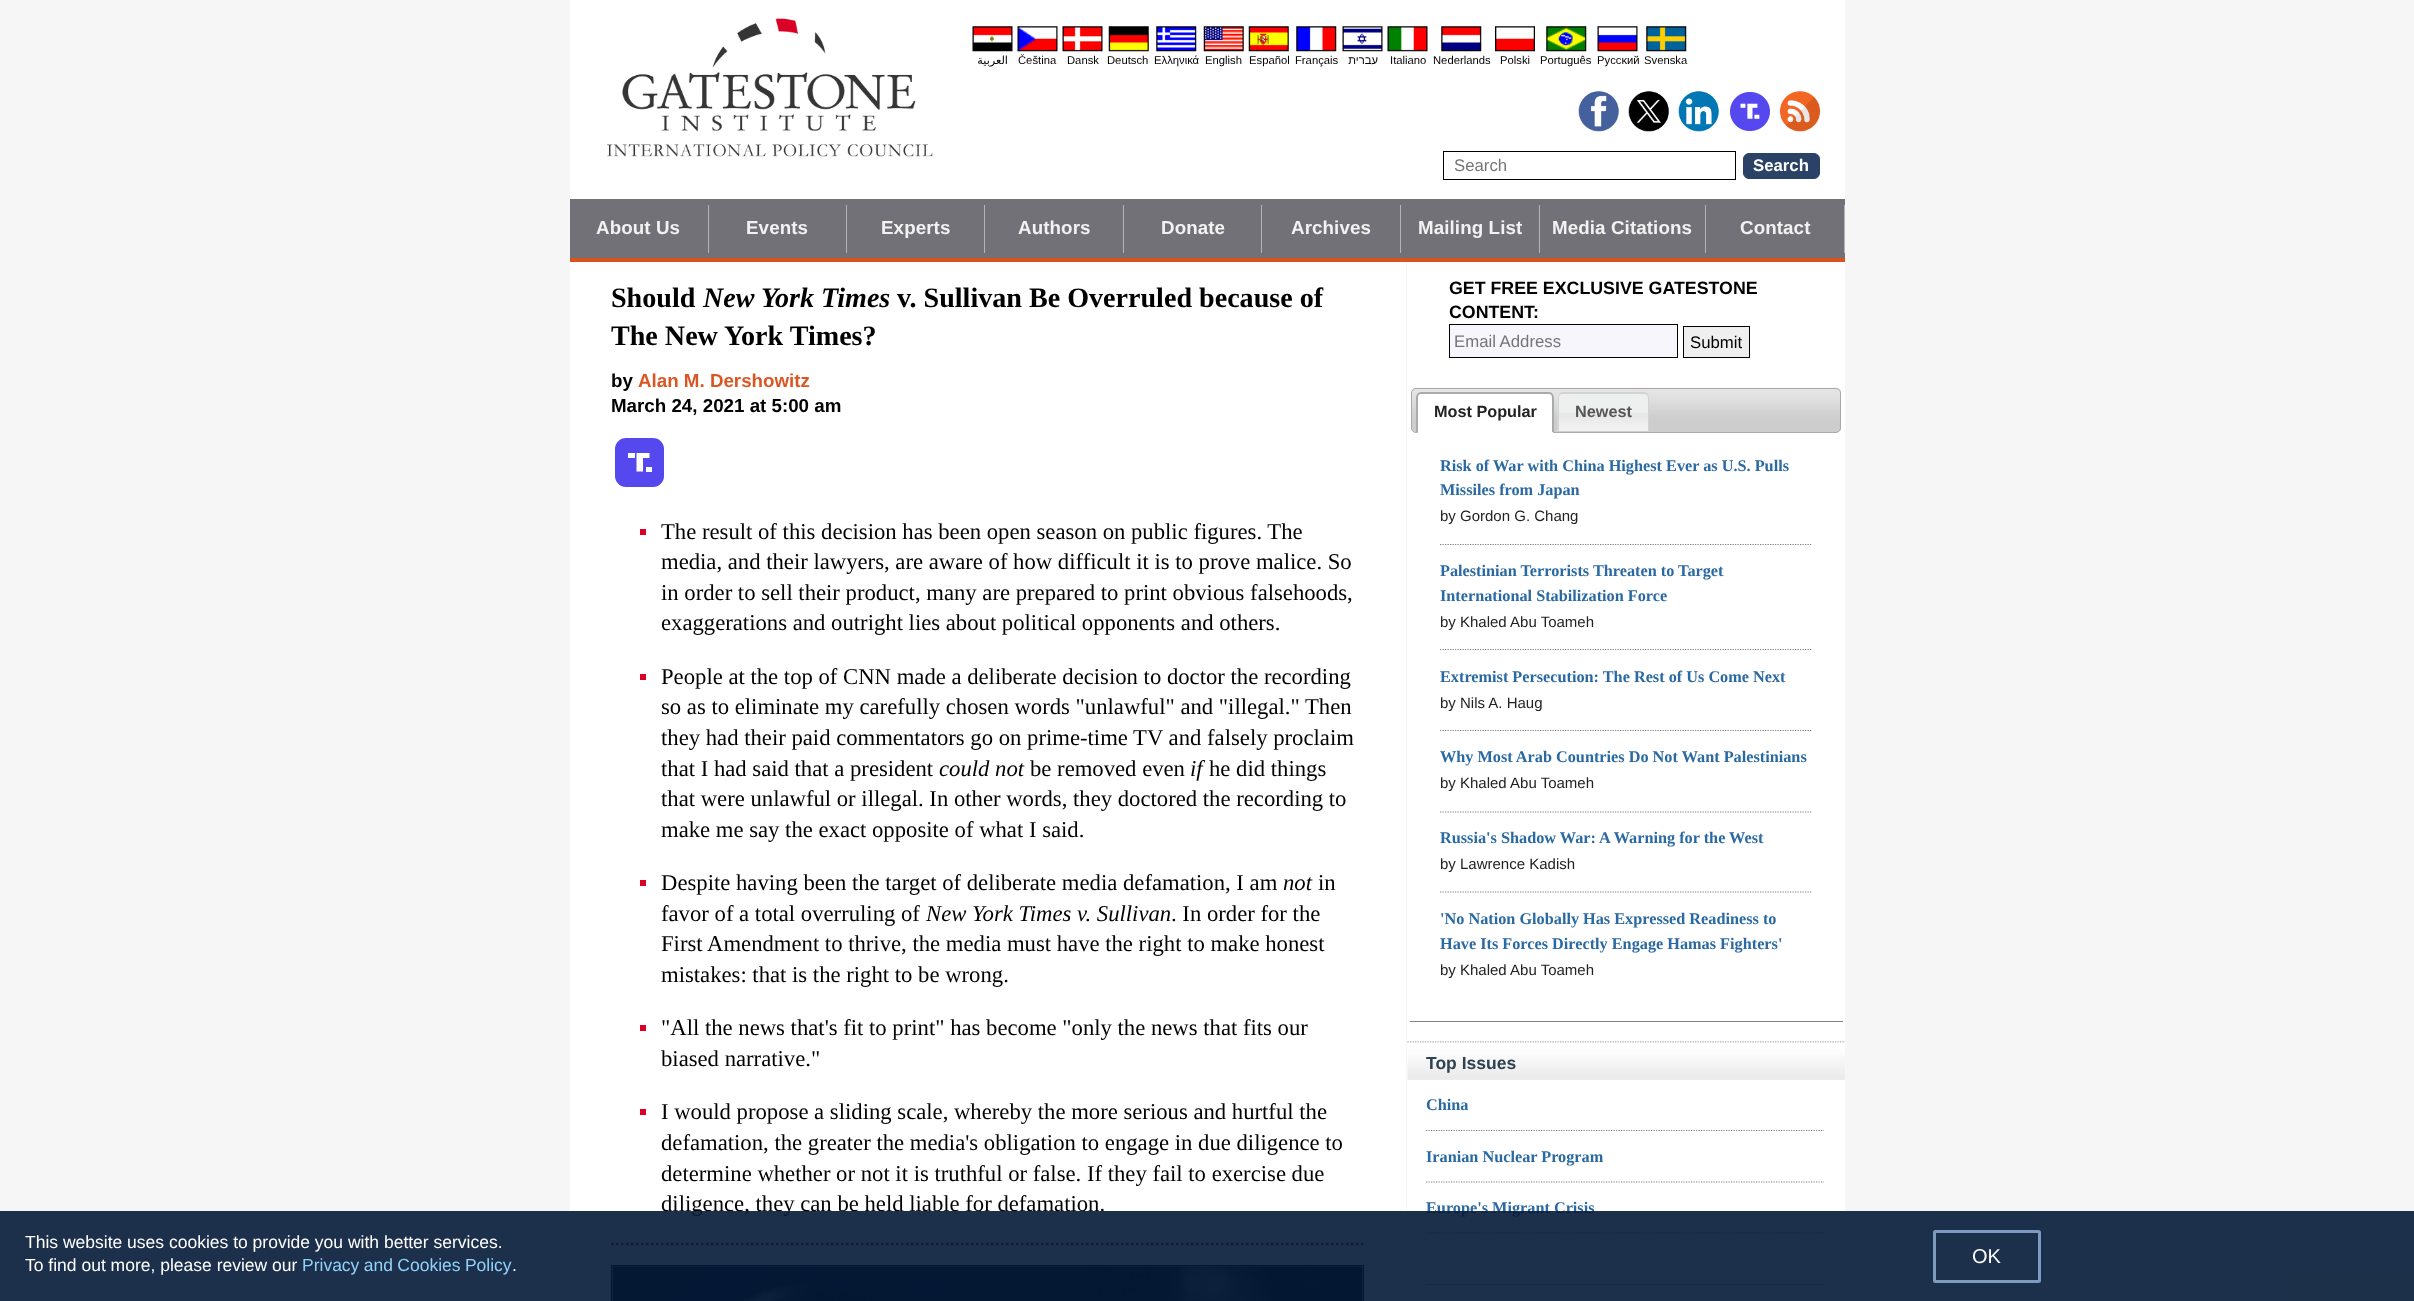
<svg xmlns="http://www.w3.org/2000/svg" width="2414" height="1301">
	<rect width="100%" height="100%" fill="#F6F6F7" />
	<rect x="570" y="0" width="1275" height="1301" fill="#FFFFFF" />
	<image x="607" y="18" width="326" height="139" href="assets/img1.png" />
	<image x="972" y="26" width="41" height="26" href="assets/img2.png" />
	<image x="1017" y="26" width="41" height="26" href="assets/img3.png" />
	<image x="1062" y="26" width="41" height="26" href="assets/img4.png" />
	<image x="1108" y="26" width="41" height="26" href="assets/img5.png" />
	<image x="1156" y="26" width="41" height="26" href="assets/img6.png" />
	<image x="1203" y="26" width="41" height="26" href="assets/img7.png" />
	<image x="1248" y="26" width="41" height="26" href="assets/img8.png" />
	<image x="1296" y="26" width="41" height="26" href="assets/img9.png" />
	<image x="1342" y="26" width="41" height="26" href="assets/img10.png" />
	<image x="1387" y="26" width="41" height="26" href="assets/img11.png" />
	<image x="1441" y="26" width="41" height="26" href="assets/img12.png" />
	<image x="1495" y="26" width="40" height="26" href="assets/img13.png" />
	<image x="1546" y="26" width="41" height="26" href="assets/img14.png" />
	<image x="1597" y="26" width="41" height="26" href="assets/img15.png" />
	<image x="1646" y="26" width="41" height="26" href="assets/img16.png" />
	<text x="1008" y="64" font-family="DejaVu Sans" font-size="11.25" direction="rtl" fill="#000000">العربية</text>
	<g font-family="Liberation Sans" font-size="11.25" fill="#000000">
		<text x="1018" y="64">Čeština</text>
		<text x="1067" y="64">Dansk</text>
		<text x="1107" y="64">Deutsch</text>
		<text x="1154" y="64">Ελληνικά</text>
		<text x="1205" y="64">English</text>
		<text x="1249" y="64">Español</text>
		<text x="1295" y="64">Français</text>
	</g>
	<text x="1378" y="64" font-family="Liberation Sans" font-size="11.25" direction="rtl" fill="#000000">עברית</text>
	<g font-family="Liberation Sans" font-size="11.25" fill="#000000">
		<text x="1390" y="64">Italiano</text>
		<text x="1433" y="64">Nederlands</text>
		<text x="1500" y="64">Polski</text>
		<text x="1540" y="64">Português</text>
		<text x="1597" y="64">Pyccĸий</text>
		<text x="1644" y="64">Svenska</text>
	</g>
	<image x="1578" y="91" width="41" height="41" href="assets/img17.png" />
	<image x="1628" y="91" width="41" height="41" href="assets/img18.png" />
	<image x="1678" y="91" width="41" height="41" href="assets/img19.png" />
	<image x="1730" y="92" width="40" height="39" href="assets/img20.png" />
	<image x="1780" y="91" width="40" height="41" href="assets/img21.png" />
	<rect x="1443.5" y="151.5" width="292" height="28" fill="none" stroke="#000000" />
	<text x="1454" y="171" font-family="Liberation Sans" font-size="16.75" fill="#757575">Search</text>
	<rect x="1743.5" y="153.5" width="76" height="25" rx="5.5" fill="#294266" stroke="#294266" />
	<text x="1753" y="171" font-family="Liberation Sans" font-size="16.75" font-weight="700" fill="#FFFFFF">Search</text>
	<rect x="570" y="199" width="1275" height="59" fill="#727177" />
	<rect x="1406" y="261" width="1" height="1040" fill="#F6F6F7" />
	<rect x="570" y="258" width="1275" height="4" fill="#DA521E" />
	<rect x="708" y="205" width="1" height="48" fill="#B9B2B9" />
	<text x="596" y="234" font-family="Liberation Sans" font-size="18.75" font-weight="700" letter-spacing="0.1" fill="#F2F2F2">About Us</text>
	<rect x="846" y="205" width="1" height="48" fill="#B9B2B9" />
	<text x="746" y="234" font-family="Liberation Sans" font-size="18.75" font-weight="700" letter-spacing="0.1" fill="#F2F2F2">Events</text>
	<rect x="984" y="205" width="1" height="48" fill="#B9B2B9" />
	<text x="881" y="234" font-family="Liberation Sans" font-size="18.75" font-weight="700" letter-spacing="0.1" fill="#F2F2F2">Experts</text>
	<rect x="1123" y="205" width="1" height="48" fill="#B9B2B9" />
	<text x="1018" y="234" font-family="Liberation Sans" font-size="18.75" font-weight="700" letter-spacing="0.1" fill="#F2F2F2">Authors</text>
	<rect x="1261" y="205" width="1" height="48" fill="#B9B2B9" />
	<text x="1161" y="234" font-family="Liberation Sans" font-size="18.75" font-weight="700" letter-spacing="0.1" fill="#F2F2F2">Donate</text>
	<rect x="1400" y="205" width="1" height="48" fill="#B9B2B9" />
	<text x="1291" y="234" font-family="Liberation Sans" font-size="18.75" font-weight="700" letter-spacing="0.1" fill="#F2F2F2">Archives</text>
	<rect x="1539" y="205" width="1" height="48" fill="#B9B2B9" />
	<text x="1418" y="234" font-family="Liberation Sans" font-size="18.75" font-weight="700" letter-spacing="0.1" fill="#F2F2F2">Mailing List</text>
	<rect x="1705" y="205" width="1" height="48" fill="#B9B2B9" />
	<text x="1552" y="234" font-family="Liberation Sans" font-size="18.75" font-weight="700" letter-spacing="0.1" fill="#F2F2F2">Media Citations</text>
	<rect x="1844" y="205" width="1" height="48" fill="#B9B2B9" />
	<text x="1740" y="234" font-family="Liberation Sans" font-size="18.75" font-weight="700" letter-spacing="0.1" fill="#F2F2F2">Contact</text>
	<text x="611" y="307" font-family="Liberation Serif" font-size="28.1" font-weight="700" fill="#000000">Should</text>
	<text x="703" y="307" font-family="Liberation Serif" font-size="28.1" font-weight="700" font-style="italic" fill="#000000">New York Times</text>
	<g font-family="Liberation Serif" font-size="28.1" font-weight="700" fill="#000000">
		<text x="897" y="307">v. Sullivan Be Overruled because of</text>
		<text x="611" y="345">The New York Times?</text>
	</g>
	<text x="611" y="387" font-family="Liberation Sans" font-size="18.75" font-weight="700" fill="#000000">by</text>
	<text x="638" y="387" font-family="Liberation Sans" font-size="18.75" font-weight="700" fill="#DA5724">Alan M. Dershowitz</text>
	<text x="611" y="412" font-family="Liberation Sans" font-size="18.75" font-weight="700" fill="#000000">March 24, 2021 at 5:00 am</text>
	<rect x="615" y="438" width="49" height="49" rx="11" fill="#5448EE" />
	<rect x="628" y="453" width="7" height="5" fill="#FFFFFF" />
	<rect x="646" y="467" width="6" height="5" fill="#FFFFFF" />
	<path d="M649.5 458V453H636.5V471.5H643V458Z" fill="#FFFFFF" />
	<path d="M611 1244H1365" fill="none" stroke="#DA0026" stroke-width="2.5" stroke-dasharray="2.5 2.5" />
	<rect x="640" y="529" width="6" height="6" fill="#DA0026" />
	<g font-family="Liberation Serif" font-size="22.7" fill="#000000">
		<text x="661" y="539">The result of this decision has been open season on public figures. The</text>
		<text x="661" y="569">media, and their lawyers, are aware of how difficult it is to prove malice. So</text>
		<text x="661" y="600">in order to sell their product, many are prepared to print obvious falsehoods,</text>
		<text x="661" y="630">exaggerations and outright lies about political opponents and others.</text>
	</g>
	<rect x="640" y="674" width="6" height="6" fill="#DA0026" />
	<g font-family="Liberation Serif" font-size="22.7" fill="#000000">
		<text x="661" y="684">People at the top of CNN made a deliberate decision to doctor the recording</text>
		<text x="661" y="714">so as to eliminate my carefully chosen words "unlawful" and "illegal." Then</text>
		<text x="661" y="745">they had their paid commentators go on prime-time TV and falsely proclaim</text>
		<text x="661" y="776">that I had said that a president</text>
	</g>
	<text x="939" y="776" font-family="Liberation Serif" font-size="22.7" font-style="italic" fill="#000000">could not</text>
	<text x="1030" y="776" font-family="Liberation Serif" font-size="22.7" fill="#000000">be removed even</text>
	<text x="1190" y="776" font-family="Liberation Serif" font-size="22.7" font-style="italic" fill="#000000">if</text>
	<g font-family="Liberation Serif" font-size="22.7" fill="#000000">
		<text x="1209" y="776">he did things</text>
		<text x="661" y="806">that were unlawful or illegal. In other words, they doctored the recording to</text>
		<text x="661" y="837">make me say the exact opposite of what I said.</text>
	</g>
	<rect x="640" y="880" width="6" height="6" fill="#DA0026" />
	<text x="661" y="890" font-family="Liberation Serif" font-size="22.7" fill="#000000">Despite having been the target of deliberate media defamation, I am</text>
	<text x="1283" y="890" font-family="Liberation Serif" font-size="22.7" font-style="italic" fill="#000000">not</text>
	<g font-family="Liberation Serif" font-size="22.7" fill="#000000">
		<text x="1318" y="890">in</text>
		<text x="661" y="921">favor of a total overruling of</text>
	</g>
	<text x="926" y="921" font-family="Liberation Serif" font-size="22.7" font-style="italic" fill="#000000">New York Times v. Sullivan</text>
	<g font-family="Liberation Serif" font-size="22.7" fill="#000000">
		<text x="1171" y="921">. In order for the</text>
		<text x="661" y="951">First Amendment to thrive, the media must have the right to make honest</text>
		<text x="661" y="982">mistakes: that is the right to be wrong.</text>
	</g>
	<rect x="640" y="1025" width="6" height="6" fill="#DA0026" />
	<g font-family="Liberation Serif" font-size="22.7" fill="#000000">
		<text x="661" y="1035">"All the news that's fit to print" has become "only the news that fits our</text>
		<text x="661" y="1066">biased narrative."</text>
	</g>
	<rect x="640" y="1109" width="6" height="6" fill="#DA0026" />
	<g font-family="Liberation Serif" font-size="22.7" fill="#000000">
		<text x="661" y="1119">I would propose a sliding scale, whereby the more serious and hurtful the</text>
		<text x="661" y="1150">defamation, the greater the media's obligation to engage in due diligence to</text>
		<text x="661" y="1181">determine whether or not it is truthful or false. If they fail to exercise due</text>
		<text x="661" y="1211">diligence, they can be held liable for defamation.</text>
	</g>
	<rect x="611.5" y="1265.5" width="752" height="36" fill="none" stroke="#000000" />
	<image x="612" y="1266" width="751" height="35" href="assets/img22.png" />
	<g font-family="Liberation Sans" font-size="17.8" font-weight="700" fill="#000000">
		<text x="1449" y="294">GET FREE EXCLUSIVE GATESTONE</text>
		<text x="1449" y="318">CONTENT:</text>
	</g>
	<rect x="1449.5" y="324.5" width="228" height="33" fill="#F6F6FC" stroke="#000000" />
	<text x="1454" y="347" font-family="Liberation Sans" font-size="16.75" fill="#757575">Email Address</text>
	<rect x="1683.5" y="326.5" width="66" height="31" fill="#EFEFEF" stroke="#000000" />
	<text x="1690" y="348" font-family="Liberation Sans" font-size="16.75" fill="#000000">Submit</text>
	<rect x="1410" y="1021" width="433" height="1" fill="#808080" />
	<image x="1411" y="387" width="430" height="45" href="assets/img23.png" />
	<rect x="1411.5" y="388.5" width="429" height="44" rx="4.5" fill="none" stroke="#AAAAAA" />
	<path d="M1422 394H1549C1551 394 1553 396 1553 398V433H1418V398C1418 396 1420 394 1422 394Z" fill="#FFFFFF" />
	<image x="1416" y="392" width="138" height="41" href="assets/img24.png" />
	<path d="M1421 392H1549C1552 392 1554 395 1554 398V432H1416V398C1416 395 1418 392 1421 392ZM1421 394H1549C1551 394 1552 395 1552 398V432H1418V398C1418 395 1419 394 1421 394Z" fill="#AAAAAA" fill-rule="evenodd" />
	<text x="1434" y="417" font-family="Liberation Sans" font-size="16.25" font-weight="700" fill="#222222">Most Popular</text>
	<image x="1557" y="393" width="92" height="38" href="assets/img25.png" />
	<path d="M1562 392H1644C1647 392 1649 395 1649 398V431H1558V398C1558 395 1560 392 1562 392ZM1562 394H1644C1646 394 1648 395 1648 398V431H1559V398C1559 395 1560 394 1562 394Z" fill="#D3D3D3" fill-rule="evenodd" />
	<text x="1575" y="417" font-family="Liberation Sans" font-size="16.25" font-weight="700" fill="#555555">Newest</text>
	<path d="M1440 544.5H1812.5" fill="none" stroke="#808080" stroke-width="1.2" stroke-dasharray="1.25 1.25" />
	<g font-family="Liberation Serif" font-size="16.25" font-weight="700" fill="#2A69A1">
		<text x="1440" y="471">Risk of War with China Highest Ever as U.S. Pulls</text>
		<text x="1440" y="495">Missiles from Japan</text>
	</g>
	<text x="1440" y="521" font-family="Liberation Sans" font-size="15" fill="#222222">by Gordon G. Chang</text>
	<path d="M1440 649.5H1812.5" fill="none" stroke="#808080" stroke-width="1.2" stroke-dasharray="1.25 1.25" />
	<g font-family="Liberation Serif" font-size="16.25" font-weight="700" fill="#2A69A1">
		<text x="1440" y="576">Palestinian Terrorists Threaten to Target</text>
		<text x="1440" y="601">International Stabilization Force</text>
	</g>
	<text x="1440" y="627" font-family="Liberation Sans" font-size="15" fill="#222222">by Khaled Abu Toameh</text>
	<path d="M1440 730.5H1812.5" fill="none" stroke="#808080" stroke-width="1.2" stroke-dasharray="1.25 1.25" />
	<text x="1440" y="682" font-family="Liberation Serif" font-size="16.25" font-weight="700" fill="#2A69A1">Extremist Persecution: The Rest of Us Come Next</text>
	<text x="1440" y="708" font-family="Liberation Sans" font-size="15" fill="#222222">by Nils A. Haug</text>
	<path d="M1440 812H1812.5" fill="none" stroke="#808080" stroke-width="1.2" stroke-dasharray="1.25 1.25" />
	<text x="1440" y="762" font-family="Liberation Serif" font-size="16.25" font-weight="700" fill="#2A69A1">Why Most Arab Countries Do Not Want Palestinians</text>
	<text x="1440" y="788" font-family="Liberation Sans" font-size="15" fill="#222222">by Khaled Abu Toameh</text>
	<path d="M1440 892H1812.5" fill="none" stroke="#808080" stroke-width="1.2" stroke-dasharray="1.25 1.25" />
	<text x="1440" y="843" font-family="Liberation Serif" font-size="16.25" font-weight="700" fill="#2A69A1">Russia's Shadow War: A Warning for the West</text>
	<text x="1440" y="869" font-family="Liberation Sans" font-size="15" fill="#222222">by Lawrence Kadish</text>
	<g font-family="Liberation Serif" font-size="16.25" font-weight="700" fill="#2A69A1">
		<text x="1440" y="924">'No Nation Globally Has Expressed Readiness to</text>
		<text x="1440" y="949">Have Its Forces Directly Engage Hamas Fighters'</text>
	</g>
	<text x="1440" y="975" font-family="Liberation Sans" font-size="15" fill="#222222">by Khaled Abu Toameh</text>
	<path d="M1407.5 1042H1845" fill="none" stroke="#808080" stroke-width="1.2" stroke-dasharray="1.25 1.25" />
	<image x="1407" y="1042" width="438" height="38" href="assets/img26.png" />
	<text x="1426" y="1069" font-family="Liberation Sans" font-size="17.5" font-weight="700" fill="#2F4251">Top Issues</text>
	<path d="M1426 1130.5H1824" fill="none" stroke="#808080" stroke-width="1.2" stroke-dasharray="1.25 1.25" />
	<text x="1426" y="1110" font-family="Liberation Serif" font-size="16.25" font-weight="700" fill="#2A69A1">China</text>
	<path d="M1426 1182H1824" fill="none" stroke="#808080" stroke-width="1.2" stroke-dasharray="1.25 1.25" />
	<text x="1426" y="1162" font-family="Liberation Serif" font-size="16.25" font-weight="700" fill="#2A69A1">Iranian Nuclear Program</text>
	<path d="M1426 1233H1824" fill="none" stroke="#808080" stroke-width="1.2" stroke-dasharray="1.25 1.25" />
	<text x="1426" y="1213" font-family="Liberation Serif" font-size="16.25" font-weight="700" fill="#2A69A1">Europe's Migrant Crisis</text>
	<path d="M1426 1284.5H1824" fill="none" stroke="#808080" stroke-width="1.2" stroke-dasharray="1.25 1.25" />
	<rect x="0" y="1211" width="2414" height="90" fill="#041A37" fill-opacity="0.9" />
	<g font-family="Liberation Sans" font-size="17.5" fill="#FFFFFF">
		<text x="25" y="1248">This website uses cookies to provide you with better services.</text>
		<text x="25" y="1271">To find out more, please review our</text>
	</g>
	<text x="302" y="1271" word-spacing="-0.5" font-family="Liberation Sans" font-size="17.5" fill="#92D2FA">Privacy and Cookies Policy</text>
	<text x="512" y="1271" font-family="Liberation Sans" font-size="17.5" fill="#FFFFFF">.</text>
	<rect x="1934.5" y="1231.5" width="105" height="50" rx="1" fill="none" stroke="#7D9AC1" stroke-width="3" />
	<text x="1972" y="1263" font-family="Liberation Sans" font-size="20" fill="#FFFFFF">OK</text>
</svg>
